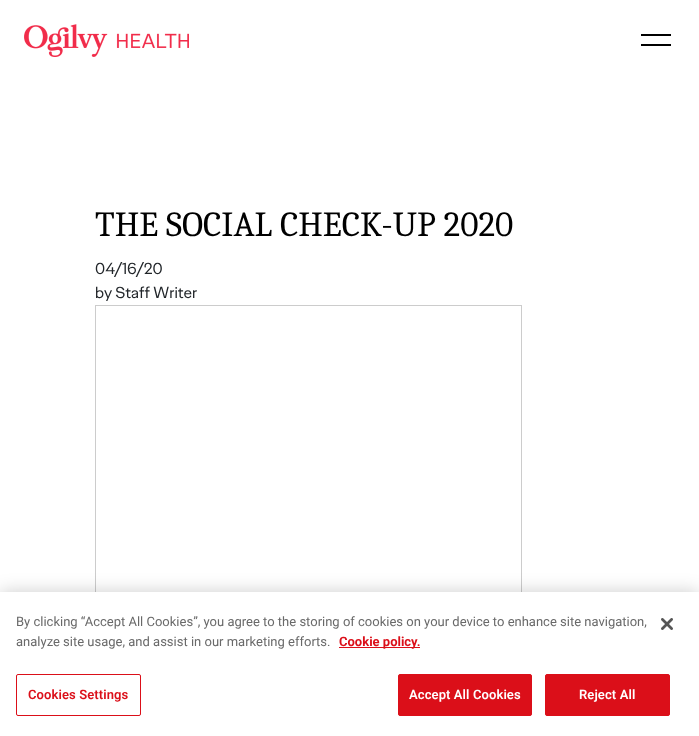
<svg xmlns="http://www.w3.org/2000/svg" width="699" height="736">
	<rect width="100%" height="100%" fill="#FFFFFF" />
	<image x="24" y="24" width="165" height="33" href="assets/img1.png" />
	<rect x="641" y="34" width="30" height="2" fill="#000000" />
	<rect x="641" y="44" width="30" height="2" fill="#000000" />
	<text x="95" y="236" font-family="Caladea" font-size="35.25" fill="#000000">THE SOCIAL CHECK-UP 2020</text>
	<g font-family="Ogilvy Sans" font-size="16" fill="#212529">
		<text x="95" y="274">04/16/20</text>
		<text x="95" y="298">by Staff Writer</text>
	</g>
	<rect x="95.5" y="305.5" width="426" height="355" fill="none" stroke="#CCCCCC" />
	<rect x="0" y="592" width="699" height="144" fill="#000000" fill-opacity="0.2" filter="blur(9px)" />
	<rect x="0" y="592" width="699" height="144" fill="#FFFFFF" />
	<g font-family="Roboto" font-size="13" fill="#696969">
		<text x="16" y="626">By clicking “Accept All Cookies”, you agree to the storing of cookies on your device to enhance site navigation,</text>
		<text x="16" y="646">analyze site usage, and assist in our marketing efforts.</text>
	</g>
	<rect x="339" y="647" width="81" height="1" fill="#DB0F19" />
	<text x="339" y="646" font-family="Roboto" font-size="13" font-weight="700" fill="#DB0F19">Cookie policy.</text>
	<rect x="16.5" y="674.5" width="124" height="41" rx="1.5" fill="none" stroke="#DB0F19" />
	<text x="28" y="699" font-family="Roboto" font-size="13" font-weight="600" letter-spacing="0.1" fill="#DB0F19">Cookies Settings</text>
	<rect x="398.5" y="674.5" width="133" height="41" rx="1.5" fill="#DB0F19" stroke="#DB0F19" />
	<text x="409" y="699" font-family="Roboto" font-size="13" font-weight="600" letter-spacing="0.1" fill="#FFFFFF">Accept All Cookies</text>
	<rect x="545.5" y="674.5" width="124" height="41" rx="1.5" fill="#DB0F19" stroke="#DB0F19" />
	<text x="579" y="699" font-family="Roboto" font-size="13" font-weight="600" letter-spacing="0.1" fill="#FFFFFF">Reject All</text>
	<image x="661" y="618" width="12" height="12" href="assets/img2.png" />
</svg>
